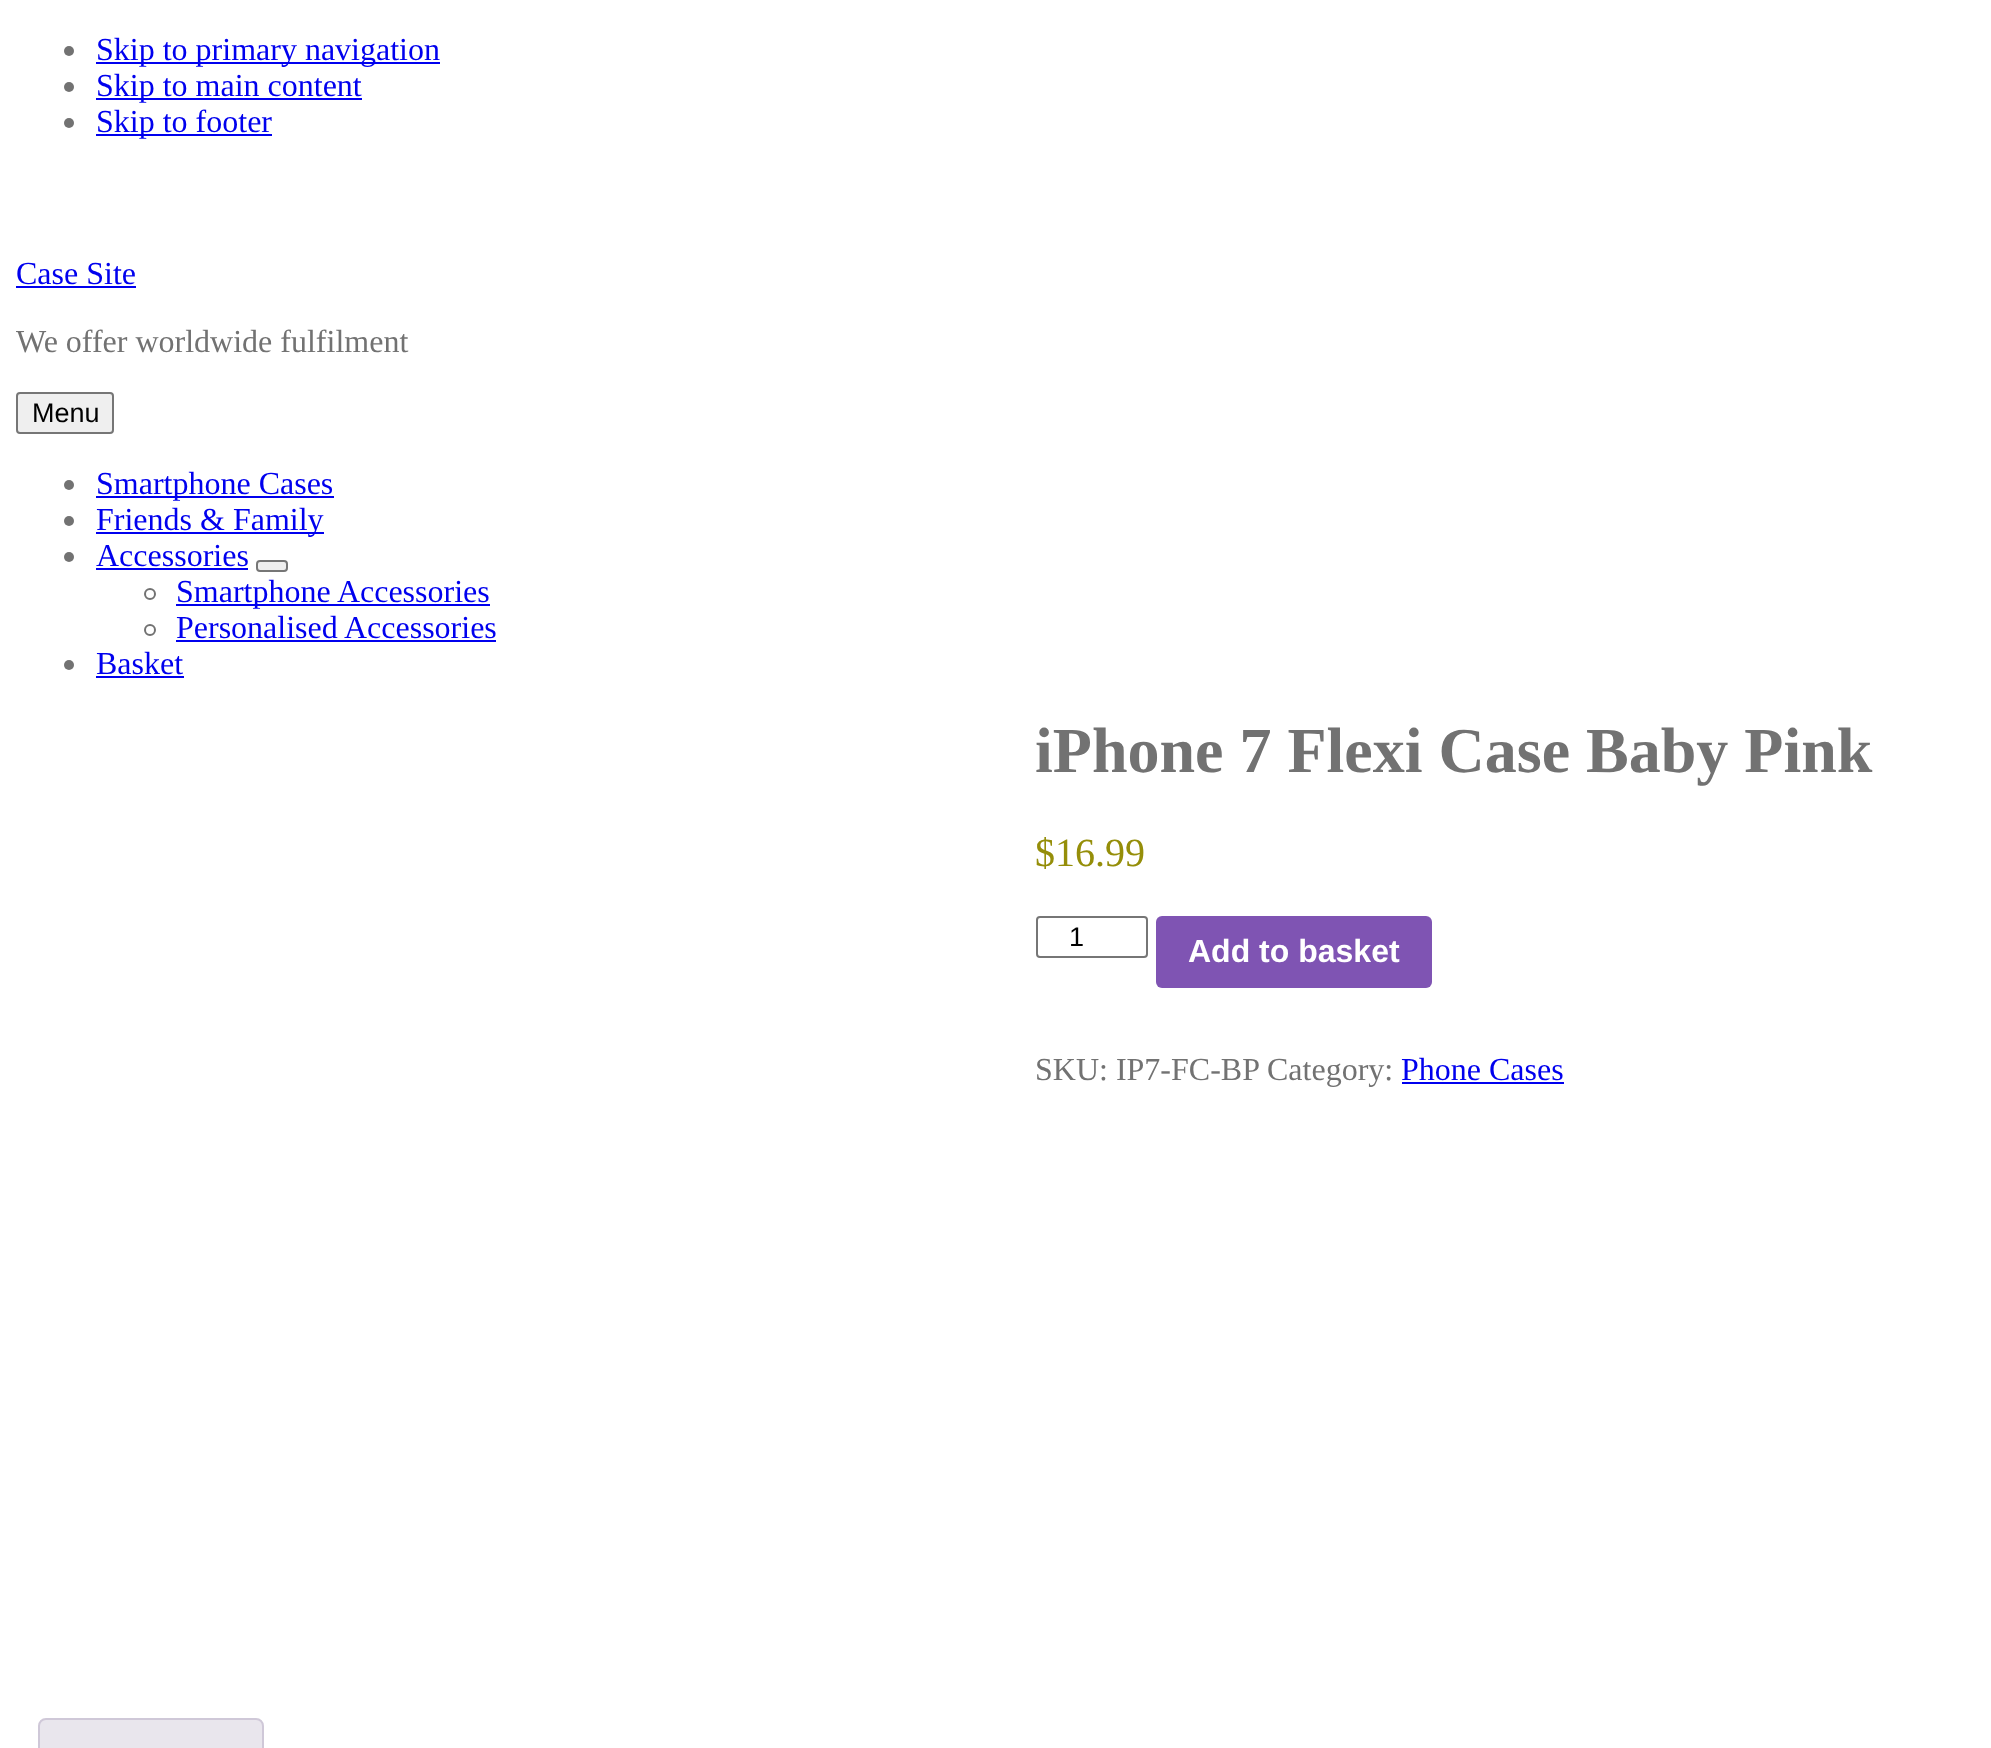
<svg xmlns="http://www.w3.org/2000/svg" width="1991" height="1748">
	<rect width="100%" height="100%" fill="#FFFFFF" />
	<circle cx="69" cy="51" r="5" fill="#727272" />
	<rect x="96" y="62" width="344" height="2" fill="#0000EE" />
	<text x="96" y="60" font-family="Liberation Serif" font-size="32" fill="#0000EE">Skip to primary navigation</text>
	<circle cx="69" cy="87" r="5" fill="#727272" />
	<rect x="96" y="98" width="266" height="2" fill="#0000EE" />
	<text x="96" y="96" font-family="Liberation Serif" font-size="32" fill="#0000EE">Skip to main content</text>
	<circle cx="69" cy="123" r="5" fill="#727272" />
	<rect x="96" y="134" width="176" height="2" fill="#0000EE" />
	<g font-family="Liberation Serif" font-size="32" fill="#0000EE">
		<text x="96" y="132">Skip to footer</text>
		<text x="16" y="284">Case Site</text>
	</g>
	<rect x="16" y="286" width="120" height="2" fill="#0000EE" />
	<text x="16" y="352" font-family="Liberation Serif" font-size="32" fill="#727272">We offer worldwide fulfilment</text>
	<rect x="17" y="393" width="96" height="40" rx="3" fill="#EFEFEF" stroke="#767676" stroke-width="2" />
	<text x="32" y="422" font-family="Liberation Sans" font-size="27" fill="#000000">Menu</text>
	<circle cx="69" cy="485" r="5" fill="#727272" />
	<rect x="96" y="496" width="238" height="2" fill="#0000EE" />
	<text x="96" y="494" font-family="Liberation Serif" font-size="32" fill="#0000EE">Smartphone Cases</text>
	<circle cx="69" cy="521" r="5" fill="#727272" />
	<rect x="96" y="532" width="228" height="2" fill="#0000EE" />
	<text x="96" y="530" font-family="Liberation Serif" font-size="32" fill="#0000EE">Friends &amp; Family</text>
	<circle cx="69" cy="557" r="5" fill="#727272" />
	<text x="96" y="566" font-family="Liberation Serif" font-size="32" fill="#0000EE">Accessories</text>
	<rect x="96" y="568" width="152" height="2" fill="#0000EE" />
	<rect x="257" y="561" width="30" height="10" rx="3" fill="#EFEFEF" stroke="#767676" stroke-width="2" />
	<circle cx="150" cy="594" r="5" fill="none" stroke="#727272" stroke-width="2" />
	<rect x="176" y="604" width="314" height="2" fill="#0000EE" />
	<text x="176" y="602" font-family="Liberation Serif" font-size="32" fill="#0000EE">Smartphone Accessories</text>
	<circle cx="150" cy="630" r="5" fill="none" stroke="#727272" stroke-width="2" />
	<text x="176" y="638" font-family="Liberation Serif" font-size="32" fill="#0000EE">Personalised Accessories</text>
	<rect x="176" y="640" width="320" height="2" fill="#0000EE" />
	<circle cx="69" cy="665" r="5" fill="#727272" />
	<text x="96" y="674" font-family="Liberation Serif" font-size="32" fill="#0000EE">Basket</text>
	<rect x="96" y="676" width="88" height="2" fill="#0000EE" />
	<text x="1035" y="772" font-family="Liberation Serif" font-size="64" font-weight="700" fill="#727272">iPhone 7 Flexi Case Baby Pink</text>
	<text x="1035" y="866" font-family="Liberation Serif" font-size="40" fill="#958E09">$16.99</text>
	<rect x="1037" y="917" width="110" height="40" rx="3" fill="none" stroke="#767676" stroke-width="2" />
	<text x="1069" y="946" font-family="Liberation Sans" font-size="27" fill="#000000">1</text>
	<rect x="1156" y="916" width="276" height="72" rx="6" fill="#7F54B3" />
	<text x="1188" y="962" font-family="Liberation Sans" font-size="32" font-weight="700" fill="#FFFFFF">Add to basket</text>
	<g font-family="Liberation Serif" font-size="32" fill="#727272">
		<text x="1035" y="1080">SKU: IP7-FC-BP</text>
		<text x="1267" y="1080">Category:</text>
	</g>
	<text x="1401" y="1080" font-family="Liberation Serif" font-size="32" fill="#0000EE">Phone Cases</text>
	<rect x="1402" y="1082" width="162" height="2" fill="#0000EE" />
	<path d="M46 1719H256C260 1719 263 1722 263 1726V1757H39V1726C39 1722 42 1719 46 1719Z" fill="#E9E6ED" stroke="#CFC8D8" stroke-width="2" />
</svg>
